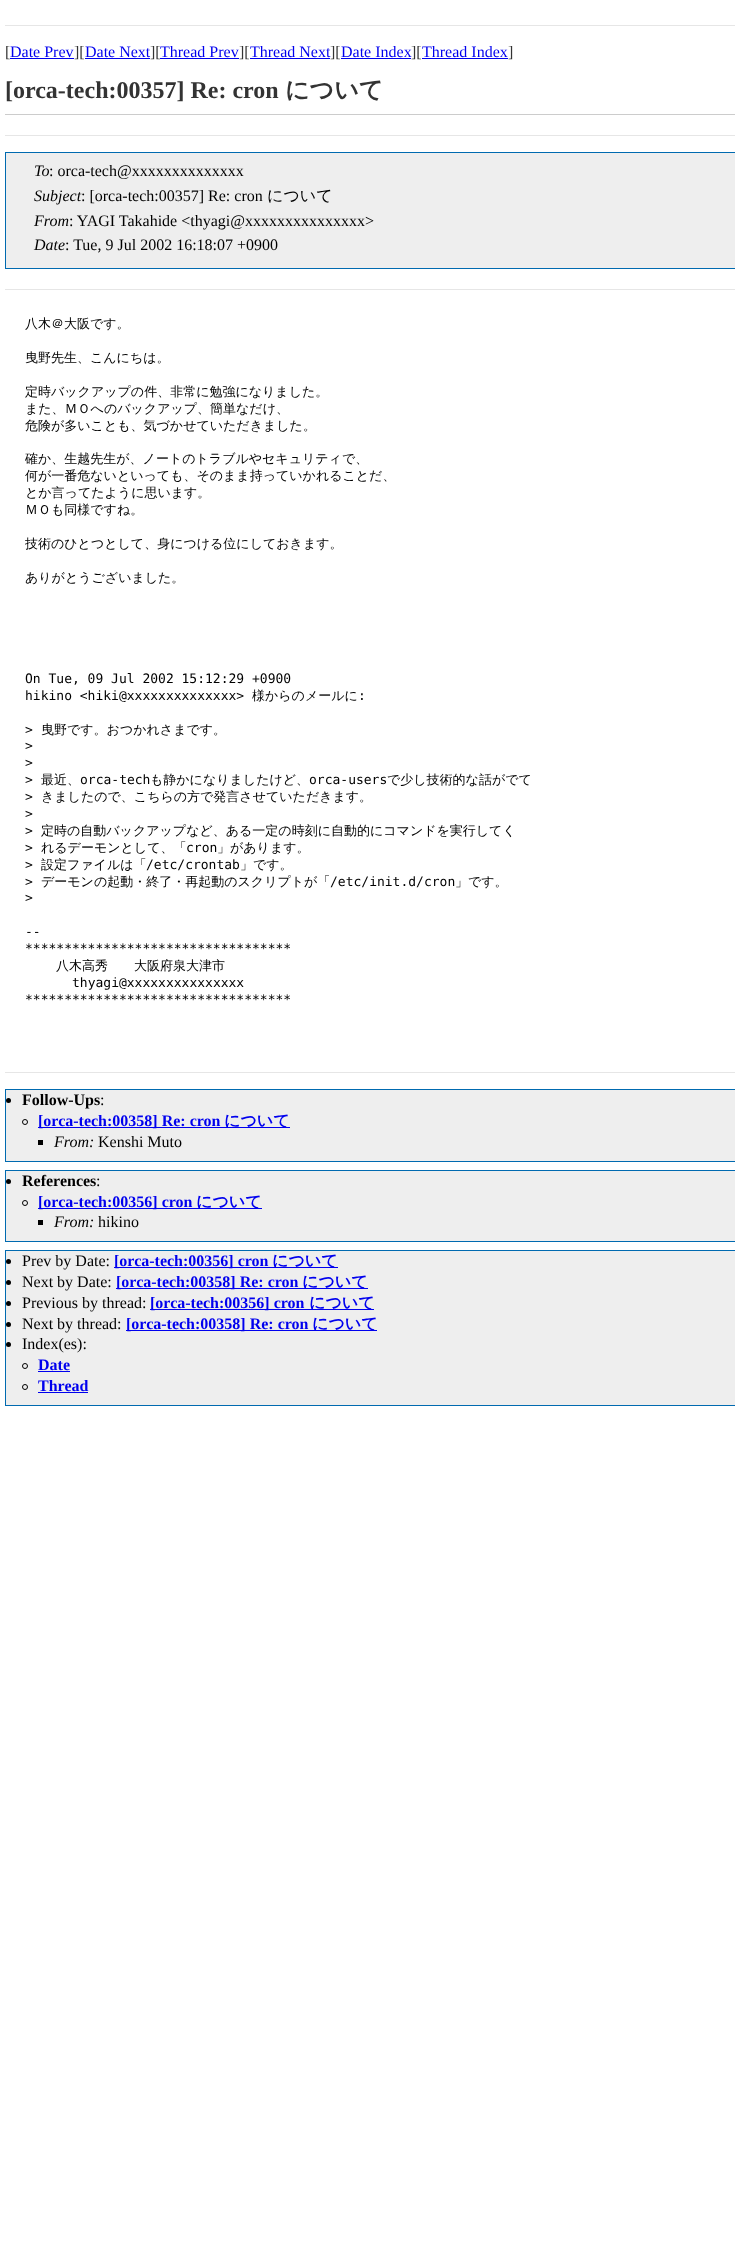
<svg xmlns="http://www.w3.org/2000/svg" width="735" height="2249">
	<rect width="100%" height="100%" fill="#FFFFFF" />
	<rect x="5" y="25" width="730" height="1" fill="#E6E6E6" />
	<text x="5" y="57" font-family="Liberation Serif" font-size="16" fill="#333333">[</text>
	<text x="10" y="57" font-family="Liberation Serif" font-size="16" fill="#0000EE">Date Prev</text>
	<rect x="10" y="58" width="64" height="1" fill="#0000EE" />
	<text x="74" y="57" font-family="Liberation Serif" font-size="16" fill="#333333">][</text>
	<text x="85" y="57" font-family="Liberation Serif" font-size="16" fill="#0000EE">Date Next</text>
	<rect x="85" y="58" width="65" height="1" fill="#0000EE" />
	<text x="150" y="57" font-family="Liberation Serif" font-size="16" fill="#333333">][</text>
	<text x="160" y="57" font-family="Liberation Serif" font-size="16" fill="#0000EE">Thread Prev</text>
	<rect x="160" y="58" width="79" height="1" fill="#0000EE" />
	<text x="239" y="57" font-family="Liberation Serif" font-size="16" fill="#333333">][</text>
	<text x="250" y="57" font-family="Liberation Serif" font-size="16" fill="#0000EE">Thread Next</text>
	<rect x="250" y="58" width="80" height="1" fill="#0000EE" />
	<text x="330" y="57" font-family="Liberation Serif" font-size="16" fill="#333333">][</text>
	<text x="341" y="57" font-family="Liberation Serif" font-size="16" fill="#0000EE">Date Index</text>
	<rect x="341" y="58" width="70" height="1" fill="#0000EE" />
	<text x="411" y="57" font-family="Liberation Serif" font-size="16" fill="#333333">][</text>
	<text x="422" y="57" font-family="Liberation Serif" font-size="16" fill="#0000EE">Thread Index</text>
	<rect x="422" y="58" width="86" height="1" fill="#0000EE" />
	<text x="508" y="57" font-family="Liberation Serif" font-size="16" fill="#333333">]</text>
	<rect x="5" y="114" width="730" height="1" fill="#CCCCCC" />
	<text x="5" y="98" font-family="Liberation Serif" font-size="24" font-weight="700" fill="#333333">[orca-tech:00357] Re: cron</text>
	<text x="285" y="98" font-family="WenQuanYi Zen Hei" font-size="24" font-weight="700" fill="#333333">について</text>
	<rect x="5" y="135" width="730" height="1" fill="#E6E6E6" />
	<rect x="5.5" y="152.5" width="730" height="116" fill="#EEEEEE" stroke="#006AB0" />
	<text x="34" y="176" font-family="Liberation Serif" font-size="16" font-style="italic" fill="#000000">To</text>
	<text x="49" y="176" font-family="Liberation Serif" font-size="16" fill="#000000">: orca-tech@xxxxxxxxxxxxxx</text>
	<text x="34" y="201" font-family="Liberation Serif" font-size="16" font-style="italic" fill="#000000">Subject</text>
	<text x="81" y="201" font-family="Liberation Serif" font-size="16" fill="#000000">: [orca-tech:00357] Re: cron</text>
	<text x="267" y="201" font-family="WenQuanYi Zen Hei" font-size="16" font-weight="500" fill="#000000">について</text>
	<text x="34" y="226" font-family="Liberation Serif" font-size="16" font-style="italic" fill="#000000">From</text>
	<text x="69" y="226" font-family="Liberation Serif" font-size="16" fill="#000000">: YAGI Takahide &lt;thyagi@xxxxxxxxxxxxxxx&gt;</text>
	<text x="34" y="250" font-family="Liberation Serif" font-size="16" font-style="italic" fill="#000000">Date</text>
	<text x="65" y="250" font-family="Liberation Serif" font-size="16" fill="#000000">: Tue, 9 Jul 2002 16:18:07 +0900</text>
	<rect x="5" y="289" width="730" height="1" fill="#E6E6E6" />
	<g font-family="WenQuanYi Zen Hei" font-size="13" font-weight="500" fill="#000000">
		<text x="25" y="328">八木＠大阪です。</text>
		<text x="25" y="362">曳野先生、こんにちは。</text>
		<text x="25" y="396">定時バックアップの件、非常に勉強になりました。</text>
		<text x="25" y="413">また、ＭＯへのバックアップ、簡単なだけ、</text>
		<text x="25" y="430">危険が多いことも、気づかせていただきました。</text>
		<text x="25" y="463">確か、生越先生が、ノートのトラブルやセキュリティで、</text>
		<text x="25" y="480">何が一番危ないといっても、そのまま持っていかれることだ、</text>
		<text x="25" y="497">とか言ってたように思います。</text>
		<text x="25" y="514">ＭＯも同様ですね。</text>
		<text x="25" y="548">技術のひとつとして、身につける位にしておきます。</text>
		<text x="25" y="582">ありがとうございました。</text>
	</g>
	<g font-family="DejaVu Sans Mono" font-size="13" fill="#000000">
		<text x="25" y="683">On Tue, 09 Jul 2002 15:12:29 +0900</text>
		<text x="25" y="700">hikino &lt;hiki@xxxxxxxxxxxxxx&gt;</text>
	</g>
	<text x="252" y="700" font-family="WenQuanYi Zen Hei" font-size="13" font-weight="500" fill="#000000">様からのメールに</text>
	<g font-family="DejaVu Sans Mono" font-size="13" fill="#000000">
		<text x="358" y="700">:</text>
		<text x="25" y="734">&gt;</text>
	</g>
	<text x="41" y="734" font-family="WenQuanYi Zen Hei" font-size="13" font-weight="500" fill="#000000">曳野です。おつかれさまです。</text>
	<g font-family="DejaVu Sans Mono" font-size="13" fill="#000000">
		<text x="25" y="750">&gt;</text>
		<text x="25" y="767">&gt;</text>
		<text x="25" y="784">&gt;</text>
	</g>
	<text x="41" y="784" font-family="WenQuanYi Zen Hei" font-size="13" font-weight="500" fill="#000000">最近、</text>
	<text x="80" y="784" font-family="DejaVu Sans Mono" font-size="13" fill="#000000">orca-tech</text>
	<text x="150" y="784" font-family="WenQuanYi Zen Hei" font-size="13" font-weight="500" fill="#000000">も静かになりましたけど、</text>
	<text x="309" y="784" font-family="DejaVu Sans Mono" font-size="13" fill="#000000">orca-users</text>
	<text x="387" y="784" font-family="WenQuanYi Zen Hei" font-size="13" font-weight="500" fill="#000000">で少し技術的な話がでて</text>
	<text x="25" y="801" font-family="DejaVu Sans Mono" font-size="13" fill="#000000">&gt;</text>
	<text x="41" y="801" font-family="WenQuanYi Zen Hei" font-size="13" font-weight="500" fill="#000000">きましたので、こちらの方で発言させていただきます。</text>
	<g font-family="DejaVu Sans Mono" font-size="13" fill="#000000">
		<text x="25" y="818">&gt;</text>
		<text x="25" y="835">&gt;</text>
	</g>
	<text x="41" y="835" font-family="WenQuanYi Zen Hei" font-size="13" font-weight="500" fill="#000000">定時の自動バックアップなど、ある一定の時刻に自動的にコマンドを実行してく</text>
	<text x="25" y="852" font-family="DejaVu Sans Mono" font-size="13" fill="#000000">&gt;</text>
	<text x="41" y="852" font-family="WenQuanYi Zen Hei" font-size="13" font-weight="500" fill="#000000">れるデーモンとして、「</text>
	<text x="186" y="852" font-family="DejaVu Sans Mono" font-size="13" fill="#000000">cron</text>
	<text x="217" y="852" font-family="WenQuanYi Zen Hei" font-size="13" font-weight="500" fill="#000000">」があります。</text>
	<text x="25" y="869" font-family="DejaVu Sans Mono" font-size="13" fill="#000000">&gt;</text>
	<text x="41" y="869" font-family="WenQuanYi Zen Hei" font-size="13" font-weight="500" fill="#000000">設定ファイルは「</text>
	<text x="146" y="869" font-family="DejaVu Sans Mono" font-size="13" fill="#000000">/etc/crontab</text>
	<text x="240" y="869" font-family="WenQuanYi Zen Hei" font-size="13" font-weight="500" fill="#000000">」です。</text>
	<text x="25" y="886" font-family="DejaVu Sans Mono" font-size="13" fill="#000000">&gt;</text>
	<text x="41" y="886" font-family="WenQuanYi Zen Hei" font-size="13" font-weight="500" fill="#000000">デーモンの起動・終了・再起動のスクリプトが「</text>
	<text x="330" y="886" font-family="DejaVu Sans Mono" font-size="13" fill="#000000">/etc/init.d/cron</text>
	<text x="455" y="886" font-family="WenQuanYi Zen Hei" font-size="13" font-weight="500" fill="#000000">」です。</text>
	<g font-family="DejaVu Sans Mono" font-size="13" fill="#000000">
		<text x="25" y="902">&gt;</text>
		<text x="25" y="936">--</text>
		<text x="25" y="953">**********************************</text>
	</g>
	<text x="56" y="970" font-family="WenQuanYi Zen Hei" font-size="13" font-weight="500" fill="#000000">八木高秀　　大阪府泉大津市</text>
	<g font-family="DejaVu Sans Mono" font-size="13" fill="#000000">
		<text x="72" y="987">thyagi@xxxxxxxxxxxxxxx</text>
		<text x="25" y="1004">**********************************</text>
	</g>
	<rect x="5" y="1072" width="730" height="1" fill="#E6E6E6" />
	<rect x="5.5" y="1089.5" width="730" height="72" fill="#EEEEEE" stroke="#006AB0" />
	<circle cx="8.5" cy="1100.5" r="2.5" fill="#000000" />
	<text x="22" y="1105" font-family="Liberation Serif" font-size="16" font-weight="700" fill="#000000">Follow-Ups</text>
	<text x="100" y="1105" font-family="Liberation Serif" font-size="16" fill="#000000">:</text>
	<circle cx="25" cy="1122" r="2.5" fill="none" stroke="#000000" />
	<rect x="38" y="1127" width="252" height="1" fill="#0000EE" />
	<text x="38" y="1126" font-family="Liberation Serif" font-size="16" font-weight="700" fill="#0000EE">[orca-tech:00358] Re: cron</text>
	<text x="224" y="1126" font-family="WenQuanYi Zen Hei" font-size="16" font-weight="700" fill="#0000EE">について</text>
	<rect x="38" y="1140" width="5" height="5" fill="#000000" />
	<text x="54" y="1147" font-family="Liberation Serif" font-size="16" font-style="italic" fill="#000000">From:</text>
	<text x="98" y="1147" font-family="Liberation Serif" font-size="16" fill="#000000">Kenshi Muto</text>
	<rect x="5.5" y="1170.5" width="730" height="71" fill="#EEEEEE" stroke="#006AB0" />
	<circle cx="8.5" cy="1181.5" r="2.5" fill="#000000" />
	<text x="22" y="1186" font-family="Liberation Serif" font-size="16" font-weight="700" fill="#000000">References</text>
	<text x="96" y="1186" font-family="Liberation Serif" font-size="16" fill="#000000">:</text>
	<circle cx="25" cy="1203" r="2.5" fill="none" stroke="#000000" />
	<rect x="38" y="1208" width="224" height="1" fill="#0000EE" />
	<text x="38" y="1207" font-family="Liberation Serif" font-size="16" font-weight="700" fill="#0000EE">[orca-tech:00356] cron</text>
	<text x="196" y="1207" font-family="WenQuanYi Zen Hei" font-size="16" font-weight="700" fill="#0000EE">について</text>
	<rect x="38" y="1220" width="5" height="5" fill="#000000" />
	<text x="54" y="1227" font-family="Liberation Serif" font-size="16" font-style="italic" fill="#000000">From:</text>
	<text x="98" y="1227" font-family="Liberation Serif" font-size="16" fill="#000000">hikino</text>
	<rect x="5.5" y="1250.5" width="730" height="155" fill="#EEEEEE" stroke="#006AB0" />
	<circle cx="8.5" cy="1261.5" r="2.5" fill="#000000" />
	<text x="22" y="1266" font-family="Liberation Serif" font-size="16" fill="#000000">Prev by Date:</text>
	<rect x="114" y="1267" width="224" height="1" fill="#0000EE" />
	<text x="114" y="1266" font-family="Liberation Serif" font-size="16" font-weight="700" fill="#0000EE">[orca-tech:00356] cron</text>
	<text x="272" y="1266" font-family="WenQuanYi Zen Hei" font-size="16" font-weight="700" fill="#0000EE">について</text>
	<circle cx="8.5" cy="1282.5" r="2.5" fill="#000000" />
	<text x="22" y="1287" font-family="Liberation Serif" font-size="16" fill="#000000">Next by Date:</text>
	<rect x="116" y="1288" width="252" height="1" fill="#0000EE" />
	<text x="116" y="1287" font-family="Liberation Serif" font-size="16" font-weight="700" fill="#0000EE">[orca-tech:00358] Re: cron</text>
	<text x="302" y="1287" font-family="WenQuanYi Zen Hei" font-size="16" font-weight="700" fill="#0000EE">について</text>
	<circle cx="8.5" cy="1303.5" r="2.5" fill="#000000" />
	<text x="22" y="1308" font-family="Liberation Serif" font-size="16" fill="#000000">Previous by thread:</text>
	<rect x="150" y="1309" width="224" height="1" fill="#0000EE" />
	<text x="150" y="1308" font-family="Liberation Serif" font-size="16" font-weight="700" fill="#0000EE">[orca-tech:00356] cron</text>
	<text x="309" y="1308" font-family="WenQuanYi Zen Hei" font-size="16" font-weight="700" fill="#0000EE">について</text>
	<circle cx="8.5" cy="1324.5" r="2.5" fill="#000000" />
	<text x="22" y="1329" font-family="Liberation Serif" font-size="16" fill="#000000">Next by thread:</text>
	<rect x="126" y="1330" width="251" height="1" fill="#0000EE" />
	<text x="126" y="1329" font-family="Liberation Serif" font-size="16" font-weight="700" fill="#0000EE">[orca-tech:00358] Re: cron</text>
	<text x="312" y="1329" font-family="WenQuanYi Zen Hei" font-size="16" font-weight="700" fill="#0000EE">について</text>
	<circle cx="8.5" cy="1344.5" r="2.5" fill="#000000" />
	<text x="22" y="1349" font-family="Liberation Serif" font-size="16" fill="#000000">Index(es):</text>
	<circle cx="25" cy="1366" r="2.5" fill="none" stroke="#000000" />
	<text x="38" y="1370" font-family="Liberation Serif" font-size="16" font-weight="700" fill="#0000EE">Date</text>
	<rect x="38" y="1371" width="32" height="1" fill="#0000EE" />
	<circle cx="25" cy="1387" r="2.5" fill="none" stroke="#000000" />
	<text x="38" y="1391" font-family="Liberation Serif" font-size="16" font-weight="700" fill="#0000EE">Thread</text>
	<rect x="38" y="1392" width="50" height="1" fill="#0000EE" />
</svg>
